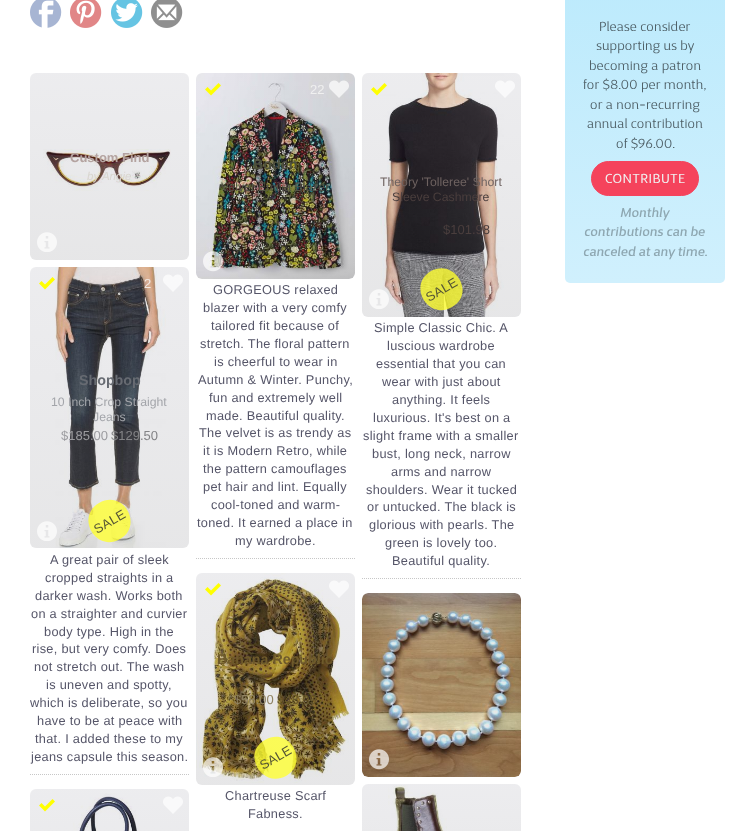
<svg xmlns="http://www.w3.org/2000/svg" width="752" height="831">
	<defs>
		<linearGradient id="g1" gradientUnits="userSpaceOnUse" x1="30" y1="260" x2="30" y2="73"><stop offset="0" stop-color="#32323C" stop-opacity="0.12" /><stop offset="1" stop-color="#646478" stop-opacity="0.12" /></linearGradient>
		<linearGradient id="g2" gradientUnits="userSpaceOnUse" x1="196" y1="279" x2="196" y2="73"><stop offset="0" stop-color="#32323C" stop-opacity="0.12" /><stop offset="1" stop-color="#646478" stop-opacity="0.12" /></linearGradient>
		<linearGradient id="g3" gradientUnits="userSpaceOnUse" x1="30" y1="548" x2="30" y2="267"><stop offset="0" stop-color="#32323C" stop-opacity="0.12" /><stop offset="1" stop-color="#646478" stop-opacity="0.12" /></linearGradient>
		<linearGradient id="g4" gradientUnits="userSpaceOnUse" x1="362" y1="317" x2="362" y2="73"><stop offset="0" stop-color="#32323C" stop-opacity="0.12" /><stop offset="1" stop-color="#646478" stop-opacity="0.12" /></linearGradient>
		<linearGradient id="g5" gradientUnits="userSpaceOnUse" x1="196" y1="785" x2="196" y2="573"><stop offset="0" stop-color="#32323C" stop-opacity="0.12" /><stop offset="1" stop-color="#646478" stop-opacity="0.12" /></linearGradient>
		<linearGradient id="g6" gradientUnits="userSpaceOnUse" x1="362" y1="777" x2="362" y2="593"><stop offset="0" stop-color="#32323C" stop-opacity="0.12" /><stop offset="1" stop-color="#646478" stop-opacity="0.12" /></linearGradient>
		<linearGradient id="g7" gradientUnits="userSpaceOnUse" x1="30" y1="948" x2="30" y2="789"><stop offset="0" stop-color="#32323C" stop-opacity="0.12" /><stop offset="1" stop-color="#646478" stop-opacity="0.12" /></linearGradient>
		<linearGradient id="g8" gradientUnits="userSpaceOnUse" x1="362" y1="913" x2="362" y2="784"><stop offset="0" stop-color="#32323C" stop-opacity="0.12" /><stop offset="1" stop-color="#646478" stop-opacity="0.12" /></linearGradient>
		<linearGradient id="g9" gradientUnits="userSpaceOnUse" x1="565" y1="283" x2="565" y2="-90"><stop offset="0" stop-color="#D0F0FD" /><stop offset="1" stop-color="#B8E9FC" /></linearGradient>
	</defs>
	<rect width="100%" height="100%" fill="#FFFFFF" />
	<image x="30" y="0" width="32" height="28" href="assets/img1.png" />
	<image x="70" y="0" width="32" height="28" href="assets/img2.png" />
	<image x="111" y="0" width="32" height="28" href="assets/img3.png" />
	<image x="151" y="0" width="32" height="28" href="assets/img4.png" />
	<image x="43" y="149" width="128" height="42" href="assets/img5.png" />
	<rect x="30" y="73" width="159" height="187" rx="6" fill="url(#g1)" />
	<text x="70" y="162" font-family="Liberation Sans" font-size="13" font-weight="700" fill="#B4A3A0">Custom Find</text>
	<text x="87" y="180" font-family="Liberation Sans" font-size="11.5" font-style="italic" fill="#D9D5CF">by Angie</text>
	<image x="37" y="232" width="20" height="20" href="assets/img6.png" />
	<image x="196" y="73" width="159" height="206" href="assets/img9.png" />
	<rect x="196" y="73" width="159" height="206" rx="6" fill="url(#g2)" />
	<image x="205" y="83" width="16" height="13" href="assets/img7.png" />
	<text x="310" y="94" font-family="Liberation Sans" font-size="13" fill="#F0F0F0">22</text>
	<image x="329" y="80" width="20" height="18" href="assets/img8.png" />
	<text x="253" y="169" font-family="Liberation Sans" font-size="14.25" font-weight="700" fill="#4E513D">Boden</text>
	<text x="221" y="191" font-family="Liberation Sans" font-size="12.25" fill="#545447">Velvet Emilia Blazer</text>
	<image x="203" y="251" width="20" height="21" href="assets/img10.png" />
	<path d="M196 558.5H355" fill="none" stroke="#C7C7C7" stroke-dasharray="1 1" />
	<g font-family="Liberation Sans" font-size="12.75" letter-spacing="0.3" fill="#555568">
		<text x="213" y="294">GORGEOUS relaxed</text>
		<text x="203" y="312">blazer with a very comfy</text>
		<text x="211" y="330">tailored fit because of</text>
		<text x="200" y="348">stretch. The floral pattern</text>
		<text x="214" y="366">is cheerful to wear in</text>
		<text x="198" y="384">Autumn &amp; Winter. Punchy,</text>
		<text x="209" y="402">fun and extremely well</text>
		<text x="206" y="420">made. Beautiful quality.</text>
		<text x="199" y="437">The velvet is as trendy as</text>
		<text x="203" y="455">it is Modern Retro, while</text>
		<text x="203" y="473">the pattern camouflages</text>
		<text x="203" y="491">pet hair and lint. Equally</text>
		<text x="211" y="509">cool-toned and warm-</text>
		<text x="197" y="527">toned. It earned a place in</text>
		<text x="235" y="545">my wardrobe.</text>
	</g>
	<image x="55" y="267" width="111" height="281" href="assets/img13.png" />
	<rect x="30" y="267" width="159" height="281" rx="6" fill="url(#g3)" />
	<image x="39" y="277" width="16" height="13" href="assets/img11.png" />
	<text x="144" y="288" font-family="Liberation Sans" font-size="13" fill="#F2E9E3">2</text>
	<image x="163" y="274" width="20" height="18" href="assets/img12.png" />
	<text x="79" y="385" font-family="Liberation Sans" font-size="14.25" font-weight="700" fill="#676B72">Shopbop</text>
	<g font-family="Liberation Sans" font-size="12.25" fill="#A3A5AA">
		<text x="51" y="406">10 Inch Crop Straight</text>
		<text x="93" y="421">Jeans</text>
	</g>
	<text x="61" y="440" font-family="Liberation Sans" font-size="13" fill="#9C9CA0">$185.00</text>
	<text x="111" y="440" font-family="Liberation Sans" font-size="13" fill="#838386">$129.50</text>
	<image x="37" y="521" width="20" height="20" href="assets/img14.png" />
	<path d="M99 503C123 489 144 525 120 539C96 553 75 517 99 503Z" fill="#FFFF32" fill-opacity="0.8" />
	<text x="97" y="534" transform="rotate(-30 97 534)" font-family="Liberation Sans" font-size="13" letter-spacing="0.3" fill="#565635">SALE</text>
	<path d="M30 774.5H189" fill="none" stroke="#C7C7C7" stroke-dasharray="1 1" />
	<g font-family="Liberation Sans" font-size="12.75" letter-spacing="0.3" fill="#555568">
		<text x="50" y="564">A great pair of sleek</text>
		<text x="45" y="582">cropped straights in a</text>
		<text x="35" y="600">darker wash. Works both</text>
		<text x="31" y="618">on a straighter and curvier</text>
		<text x="44" y="636">body type. High in the</text>
		<text x="32" y="653">rise, but very comfy. Does</text>
		<text x="34" y="671">not stretch out. The wash</text>
		<text x="46" y="689">is uneven and spotty,</text>
		<text x="30" y="707">which is deliberate, so you</text>
		<text x="37" y="725">have to be at peace with</text>
		<text x="35" y="743">that. I added these to my</text>
		<text x="31" y="761">jeans capsule this season.</text>
	</g>
	<image x="380" y="73" width="124" height="244" href="assets/img17.png" />
	<rect x="362" y="73" width="159" height="244" rx="6" fill="url(#g4)" />
	<image x="371" y="83" width="16" height="13" href="assets/img15.png" />
	<image x="495" y="80" width="20" height="18" href="assets/img16.png" />
	<text x="380" y="186" font-family="Liberation Sans" font-size="12.25" fill="#6E6260">Theory 'Tolleree' Short</text>
	<text x="392" y="201" font-family="Liberation Sans" font-size="12.25" fill="#4A3E3D">Sleeve Cashmere</text>
	<text x="443" y="234" font-family="Liberation Sans" font-size="13" fill="#4A3E3D">$101.98</text>
	<image x="369" y="289" width="20" height="20" href="assets/img18.png" />
	<path d="M431 271C455 258 476 294 452 307C428 321 407 285 431 271Z" fill="#FFFF32" fill-opacity="0.8" />
	<text x="429" y="302" transform="rotate(-30 429 302)" font-family="Liberation Sans" font-size="13" letter-spacing="0.3" fill="#565635">SALE</text>
	<path d="M362 578.5H521" fill="none" stroke="#C7C7C7" stroke-dasharray="1 1" />
	<g font-family="Liberation Sans" font-size="12.75" letter-spacing="0.3" fill="#555568">
		<text x="374" y="332">Simple Classic Chic. A</text>
		<text x="387" y="350">luscious wardrobe</text>
		<text x="376" y="368">essential that you can</text>
		<text x="382" y="386">wear with just about</text>
		<text x="392" y="404">anything. It feels</text>
		<text x="373" y="422">luxurious. It's best on a</text>
		<text x="363" y="440">slight frame with a smaller</text>
		<text x="372" y="458">bust, long neck, narrow</text>
		<text x="391" y="476">arms and narrow</text>
		<text x="366" y="494">shoulders. Wear it tucked</text>
		<text x="367" y="511">or untucked. The black is</text>
		<text x="369" y="529">glorious with pearls. The</text>
		<text x="385" y="547">green is lovely too.</text>
		<text x="392" y="565">Beautiful quality.</text>
	</g>
	<image x="196" y="573" width="154" height="210" href="assets/img21.png" />
	<rect x="196" y="573" width="159" height="212" rx="6" fill="url(#g5)" />
	<image x="205" y="583" width="16" height="13" href="assets/img19.png" />
	<image x="329" y="580" width="20" height="18" href="assets/img20.png" />
	<text x="217" y="664" font-family="Liberation Sans" font-size="14.25" font-weight="700" fill="#6E5A2B">Banana Republic</text>
	<text x="234" y="704" font-family="Liberation Sans" font-size="13" fill="#908363">$58.00</text>
	<text x="277" y="704" font-family="Liberation Sans" font-size="13" fill="#66552B">$48.99</text>
	<image x="203" y="757" width="20" height="20" href="assets/img22.png" />
	<path d="M265 740C289 726 310 762 286 776C262 789 241 753 265 740Z" fill="#FFFF32" fill-opacity="0.8" />
	<text x="263" y="770" transform="rotate(-30 263 770)" font-family="Liberation Sans" font-size="13" letter-spacing="0.3" fill="#565635">SALE</text>
	<g font-family="Liberation Sans" font-size="12.75" letter-spacing="0.3" fill="#555568">
		<text x="225" y="800">Chartreuse Scarf</text>
		<text x="248" y="818">Fabness.</text>
	</g>
	<image x="362" y="593" width="159" height="184" href="assets/img23.png" />
	<rect x="362" y="593" width="159" height="184" rx="6" fill="url(#g6)" />
	<image x="369" y="749" width="20" height="21" href="assets/img24.png" />
	<image x="73" y="793" width="67" height="38" href="assets/img25.png" />
	<rect x="30" y="789" width="159" height="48" rx="6" fill="url(#g7)" />
	<image x="39" y="799" width="16" height="13" href="assets/img26.png" />
	<image x="163" y="796" width="20" height="18" href="assets/img27.png" />
	<image x="388" y="785" width="59" height="46" href="assets/img28.png" />
	<rect x="362" y="784" width="159" height="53" rx="6" fill="url(#g8)" />
	<rect x="565" y="-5" width="160" height="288" rx="5" fill="url(#g9)" />
	<g font-family="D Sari" font-size="13" font-weight="300" letter-spacing="0.3" fill="#4D5E65">
		<text x="599" y="31">Please consider</text>
		<text x="596" y="50">supporting us by</text>
		<text x="589" y="70">becoming a patron</text>
		<text x="583" y="89">for $8.00 per month,</text>
		<text x="590" y="109">or a non-recurring</text>
		<text x="587" y="128">annual contribution</text>
		<text x="616" y="148">of $96.00.</text>
	</g>
	<rect x="591.5" y="161.5" width="107" height="34" rx="17" fill="#F5435C" stroke="#F5435C" />
	<text x="605" y="183" font-family="'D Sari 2'" font-size="13" font-weight="300" letter-spacing="0.5" fill="#F0F0F0">CONTRIBUTE</text>
	<g font-family="D Sari" font-size="13" font-style="italic" letter-spacing="0.3" fill="#8EA7B1">
		<text x="620" y="217">Monthly</text>
		<text x="584" y="236">contributions can be</text>
		<text x="583" y="256">canceled at any time.</text>
	</g>
</svg>
